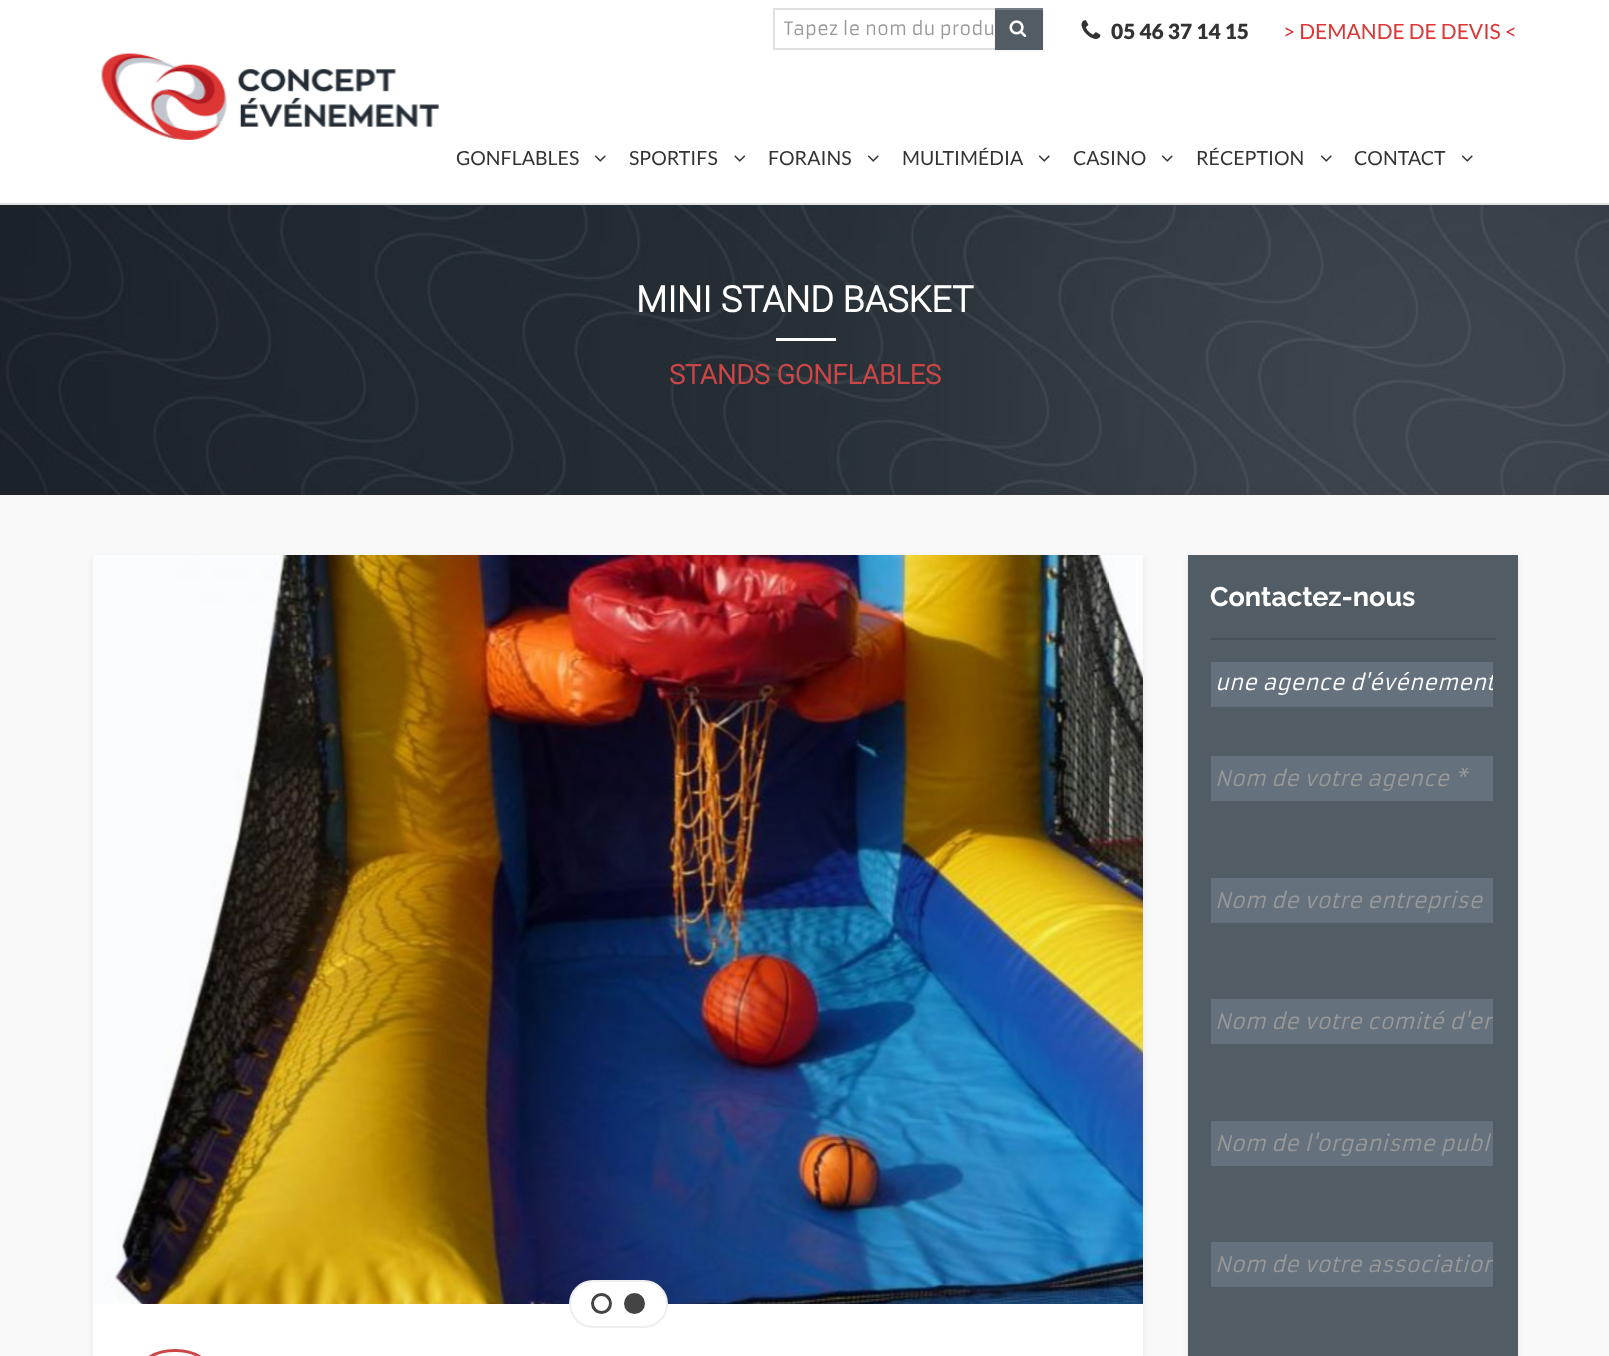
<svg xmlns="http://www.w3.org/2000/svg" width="1609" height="1356">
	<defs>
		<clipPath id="clip1"><rect x="1215" y="672" width="278" height="24" /></clipPath>
		<clipPath id="clip2"><rect x="1215" y="1008" width="278" height="27" /></clipPath>
		<clipPath id="clip3"><rect x="1215" y="1251" width="278" height="27" /></clipPath>
	</defs>
	<rect width="100%" height="100%" fill="#F9F9F9" />
	<rect x="0" y="0" width="1609" height="53" fill="#FFFFFF" />
	<rect x="774" y="9" width="229" height="40" fill="none" stroke="#DFDFDF" stroke-width="2" />
	<text x="784" y="35" font-family="Armata" font-size="18" fill="#999999">Tapez le nom du produ</text>
	<rect x="995" y="9" width="48" height="42" fill="#000000" fill-opacity="0.05" filter="blur(1.5px)" />
	<rect x="995" y="10" width="48" height="40" fill="#525C65" />
	<rect x="995" y="8" width="48" height="2" fill="#757D84" />
	<image x="1009" y="20" width="18" height="17" href="assets/img1.png" />
	<image x="1081" y="20" width="20" height="19" href="assets/img2.png" />
	<text x="1111" y="39" font-family="Lato" font-size="21" font-weight="900" fill="#333333">05 46 37 14 15</text>
	<text x="1283" y="39" font-family="Lato" font-size="21" fill="#DD3635">&gt; DEMANDE DE DEVIS &lt;</text>
	<rect x="0" y="53" width="1609" height="150" fill="#FFFFFF" />
	<rect x="0" y="203" width="1609" height="2" fill="#E1E1E1" />
	<image x="101" y="53" width="338" height="87" href="assets/img3.png" />
	<text x="456" y="165" font-family="Lato" font-size="19.5" fill="#333333">GONFLABLES</text>
	<image x="594" y="155" width="12" height="7" href="assets/img4.png" />
	<text x="629" y="165" font-family="Lato" font-size="19.5" fill="#333333">SPORTIFS</text>
	<image x="734" y="155" width="12" height="7" href="assets/img5.png" />
	<text x="768" y="165" font-family="Lato" font-size="19.5" fill="#333333">FORAINS</text>
	<image x="867" y="155" width="12" height="7" href="assets/img4.png" />
	<text x="902" y="165" font-family="Lato" font-size="19.5" fill="#333333">MULTIMÉDIA</text>
	<image x="1038" y="155" width="12" height="7" href="assets/img4.png" />
	<text x="1073" y="165" font-family="Lato" font-size="19.5" fill="#333333">CASINO</text>
	<image x="1161" y="155" width="12" height="7" href="assets/img4.png" />
	<text x="1196" y="165" font-family="Lato" font-size="19.5" fill="#333333">RÉCEPTION</text>
	<image x="1320" y="155" width="12" height="7" href="assets/img4.png" />
	<text x="1354" y="165" font-family="Lato" font-size="19.5" fill="#333333">CONTACT</text>
	<image x="1461" y="155" width="12" height="7" href="assets/img4.png" />
	<image x="0" y="205" width="1609" height="290" href="assets/img6.png" />
	<text x="636" y="312" font-family="Roboto" font-size="36" font-weight="700" fill="#FFFFFF">MINI STAND BASKET</text>
	<rect x="776" y="338" width="60" height="3" fill="#FFFFFF" />
	<text x="669" y="384" font-family="Roboto" font-size="27" font-weight="700" fill="#CC4647">STANDS GONFLABLES</text>
	<rect x="93" y="558" width="1050" height="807" fill="#000000" fill-opacity="0.08" filter="blur(3px)" />
	<rect x="93" y="555" width="1050" height="801" fill="#FFFFFF" />
	<image x="93" y="555" width="1050" height="749" href="assets/img7.png" />
	<rect x="570" y="1281" width="97" height="46" rx="23" fill="#FFFFFF" stroke="#EEEEEE" stroke-width="2" />
	<circle cx="601.5" cy="1303.5" r="9" fill="none" stroke="#444444" stroke-width="3" />
	<circle cx="634.5" cy="1303.5" r="9" fill="#444444" stroke="#444444" stroke-width="3" />
	<rect x="139.5" y="1350.5" width="71" height="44" rx="35" fill="none" stroke="#CC4647" stroke-width="3" />
	<rect x="1188" y="558" width="330" height="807" fill="#000000" fill-opacity="0.08" filter="blur(3px)" />
	<rect x="1188" y="555" width="330" height="801" fill="#525C65" />
	<rect x="1211" y="638" width="285" height="2" fill="#485159" />
	<text x="1210" y="606" font-family="Raleway" font-size="27" font-weight="100" fill="#FFFFFF">Contactez-nous</text>
	<rect x="1211" y="662" width="282" height="45" fill="#65727D" />
	<g clip-path="url(#clip1)">
		<text x="1215" y="690" font-family="Armata" font-size="21" font-style="italic" fill="#FFFFFF">une agence d'événement</text>
	</g>
	<rect x="1211" y="756" width="282" height="45" fill="#65727D" />
	<text x="1215" y="786" font-family="Armata" font-size="21" font-style="italic" fill="#999999">Nom de votre agence *</text>
	<rect x="1211" y="878" width="282" height="45" fill="#65727D" />
	<text x="1215" y="908" font-family="Armata" font-size="21" font-style="italic" fill="#999999">Nom de votre entreprise</text>
	<rect x="1211" y="999" width="282" height="45" fill="#65727D" />
	<g clip-path="url(#clip2)">
		<text x="1215" y="1029" font-family="Armata" font-size="21" font-style="italic" fill="#999999">Nom de votre comité d'en</text>
	</g>
	<rect x="1211" y="1121" width="282" height="45" fill="#65727D" />
	<text x="1215" y="1151" font-family="Armata" font-size="21" font-style="italic" fill="#999999">Nom de l'organisme publ</text>
	<rect x="1211" y="1242" width="282" height="45" fill="#65727D" />
	<g clip-path="url(#clip3)">
		<text x="1215" y="1272" font-family="Armata" font-size="21" font-style="italic" fill="#999999">Nom de votre association</text>
	</g>
</svg>
